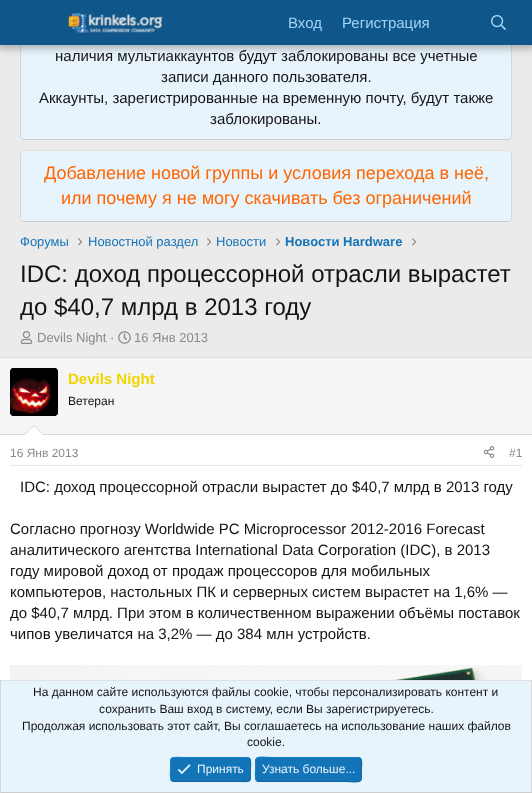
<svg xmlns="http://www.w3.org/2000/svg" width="532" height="793">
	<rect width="100%" height="100%" fill="#EBEBEB" />
	<rect x="20" y="-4" width="492" height="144" rx="4" fill="#E8F4FC" />
	<path d="M510.5-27.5C511-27 511.5-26 511.5-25V136C511.5 137 511 138 510.5 138.5" fill="none" stroke="#D6D6D6" />
	<path d="M510.5 138.5C510 139 509 139.5 508 139.5H24C23 139.5 22 139 21.5 138.5" fill="none" stroke="#CCCCCC" />
	<path d="M21.5 138.5C21 138 20.5 137 20.5 136V-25C20.5-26 21-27 21.5-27.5" fill="none" stroke="#D6D6D6" />
	<rect x="-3" y="-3" width="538" height="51" fill="#000000" fill-opacity="0.3" filter="blur(4px)" />
	<rect x="0" y="0" width="532" height="45" fill="#0F578A" />
	<image x="68" y="13" width="95" height="20" href="assets/img1.png" />
	<g font-family="Liberation Sans" font-size="15" fill="#A3D4F5">
		<text x="288" y="28">Вход</text>
		<text x="342" y="28">Регистрация</text>
	</g>
	<image x="491" y="15" width="15" height="15" href="assets/img2.png" />
	<g font-family="Liberation Sans" font-size="15" fill="#141414">
		<text x="55" y="61">наличия мультиаккаунтов будут заблокированы все учетные</text>
		<text x="161" y="82">записи данного пользователя.</text>
		<text x="39" y="103">Аккаунты, зарегистрированные на временную почту, будут также</text>
		<text x="210" y="124">заблокированы.</text>
	</g>
	<rect x="20" y="150" width="492" height="72" rx="4" fill="#E8F4FC" />
	<path d="M21.5 151.5C22 151 23 150.5 24 150.5H508C509 150.5 510 151 510.5 151.5" fill="none" stroke="#E0E0E0" />
	<path d="M510.5 151.5L511.5 153.5V218.5L510.5 220.5" fill="none" stroke="#D6D6D6" />
	<path d="M510.5 220.5C510 221 509 221.5 508 221.5H24C23 221.5 22 221 21.5 220.5" fill="none" stroke="#CCCCCC" />
	<path d="M21.5 220.5L20.5 218.5V153.5L21.5 151.5" fill="none" stroke="#D6D6D6" />
	<g font-family="Liberation Sans" font-size="18" fill="#FF6600">
		<text x="44" y="179">Добавление новой группы и условия перехода в неё,</text>
		<text x="61" y="204">или почему я не могу скачивать без ограничений</text>
	</g>
	<text x="20" y="246" font-family="Liberation Sans" font-size="13" fill="#1474B8">Форумы</text>
	<image x="78" y="238" width="4" height="8" href="assets/img3.png" />
	<text x="88" y="246" font-family="Liberation Sans" font-size="13" fill="#1474B8">Новостной раздел</text>
	<image x="207" y="238" width="4" height="8" href="assets/img3.png" />
	<text x="216" y="246" font-family="Liberation Sans" font-size="13" fill="#1474B8">Новости</text>
	<image x="276" y="238" width="4" height="8" href="assets/img3.png" />
	<text x="285" y="246" font-family="Liberation Sans" font-size="13" font-weight="700" fill="#1474B8">Новости Hardware</text>
	<image x="412" y="238" width="4" height="8" href="assets/img3.png" />
	<g font-family="Liberation Sans" font-size="24" fill="#141414">
		<text x="20" y="282">IDC: доход процессорной отрасли вырастет</text>
		<text x="20" y="315">до $40,7 млрд в 2013 году</text>
	</g>
	<image x="20" y="331" width="13" height="13" href="assets/img4.png" />
	<text x="37" y="342" font-family="Liberation Sans" font-size="13" fill="#8A8A8A">Devils Night ·</text>
	<image x="118" y="331" width="13" height="13" href="assets/img5.png" />
	<text x="134" y="342" font-family="Liberation Sans" font-size="13" fill="#8A8A8A">16 Янв 2013</text>
	<rect x="0" y="435" width="532" height="245" fill="#FFFFFF" />
	<rect x="0" y="357" width="532" height="1" fill="#E0E0E0" />
	<rect x="0" y="358" width="532" height="76" fill="#F5F5F5" />
	<rect x="0" y="434" width="532" height="1" fill="#D6D6D6" />
	<rect x="10" y="368" width="48" height="48" rx="2.5" fill="#FFFFFF" />
	<image x="10" y="368" width="48" height="48" href="assets/img6.png" />
	<text x="68" y="384" font-family="Liberation Sans" font-size="15" font-weight="700" fill="#F0D400">Devils Night</text>
	<text x="68" y="405" font-family="Liberation Sans" font-size="12" fill="#141414">Ветеран</text>
	<path d="M44 435H24L34 425Z" fill="#D6D6D6" />
	<path d="M43 435H25L34 426Z" fill="#FFFFFF" />
	<rect x="10" y="465" width="512" height="1" fill="#E6E6E6" />
	<text x="10" y="457" font-family="Liberation Sans" font-size="12" fill="#8A8A8A">16 Янв 2013</text>
	<image x="483" y="446" width="12" height="12" href="assets/img7.png" />
	<text x="509" y="457" font-family="Liberation Sans" font-size="12" fill="#8A8A8A">#1</text>
	<g font-family="Liberation Sans" font-size="15" fill="#141414">
		<text x="20" y="492">IDC: доход процессорной отрасли вырастет до $40,7 млрд в 2013 году</text>
		<text x="10" y="534">Согласно прогнозу Worldwide PC Microprocessor 2012-2016 Forecast</text>
		<text x="10" y="555">аналитического агентства International Data Corporation (IDC), в 2013</text>
		<text x="10" y="576">году мировой доход от продаж процессоров для мобильных</text>
		<text x="10" y="597">компьютеров, настольных ПК и серверных систем вырастет на 1,6% —</text>
		<text x="10" y="618">до $40,7 млрд. При этом в количественном выражении объёмы поставок</text>
		<text x="10" y="639">чипов увеличатся на 3,2% — до 384 млн устройств.</text>
	</g>
	<image x="10" y="665" width="512" height="15" href="assets/img8.png" />
	<rect x="1" y="681" width="530" height="111" fill="#E8F4FC" />
	<rect x="0" y="680" width="532" height="1" fill="#E0E0E0" />
	<rect x="531" y="680" width="1" height="113" fill="#D6D6D6" />
	<rect x="0" y="792" width="532" height="1" fill="#CCCCCC" />
	<rect x="0" y="680" width="1" height="113" fill="#D6D6D6" />
	<g font-family="Liberation Sans" font-size="12" fill="#141414">
		<text x="33" y="696">На данном сайте используются файлы cookie, чтобы персонализировать контент и</text>
		<text x="99" y="713">сохранить Ваш вход в систему, если Вы зарегистрируетесь.</text>
		<text x="22" y="730">Продолжая использовать этот сайт, Вы соглашаетесь на использование наших файлов</text>
		<text x="247" y="746">cookie.</text>
	</g>
	<rect x="170" y="757" width="81" height="25" rx="4" fill="#1474B8" />
	<path d="M249.5 758.5C251.5 761 250.5 767 250.5 769.5C250.5 784 251 781.5 235 781.5H174L171.5 780.5" fill="none" stroke="#1265A1" />
	<path d="M171.5 780.5C169.5 778 170.5 772 170.5 769.5C170.5 755 170 757.5 186 757.5H247L249.5 758.5" fill="none" stroke="#1782CF" />
	<image x="177" y="764" width="14" height="11" href="assets/img9.png" />
	<text x="197" y="773" font-family="Liberation Sans" font-size="12" fill="#E8F4FC">Принять</text>
	<rect x="255" y="757" width="107" height="25" rx="4" fill="#1474B8" />
	<path d="M360.5 758.5C362.5 761 361.5 767 361.5 769.5C361.5 785.5 361.5 781.5 341.5 781.5H258L256.5 780.5" fill="none" stroke="#1265A1" />
	<path d="M256.5 780.5C254.5 778 255.5 772 255.5 769.5C255.5 753.5 255.5 757.5 275.5 757.5H359L360.5 758.5" fill="none" stroke="#1782CF" />
	<text x="262" y="773" font-family="Liberation Sans" font-size="12" fill="#E8F4FC">Узнать больше...</text>
</svg>
